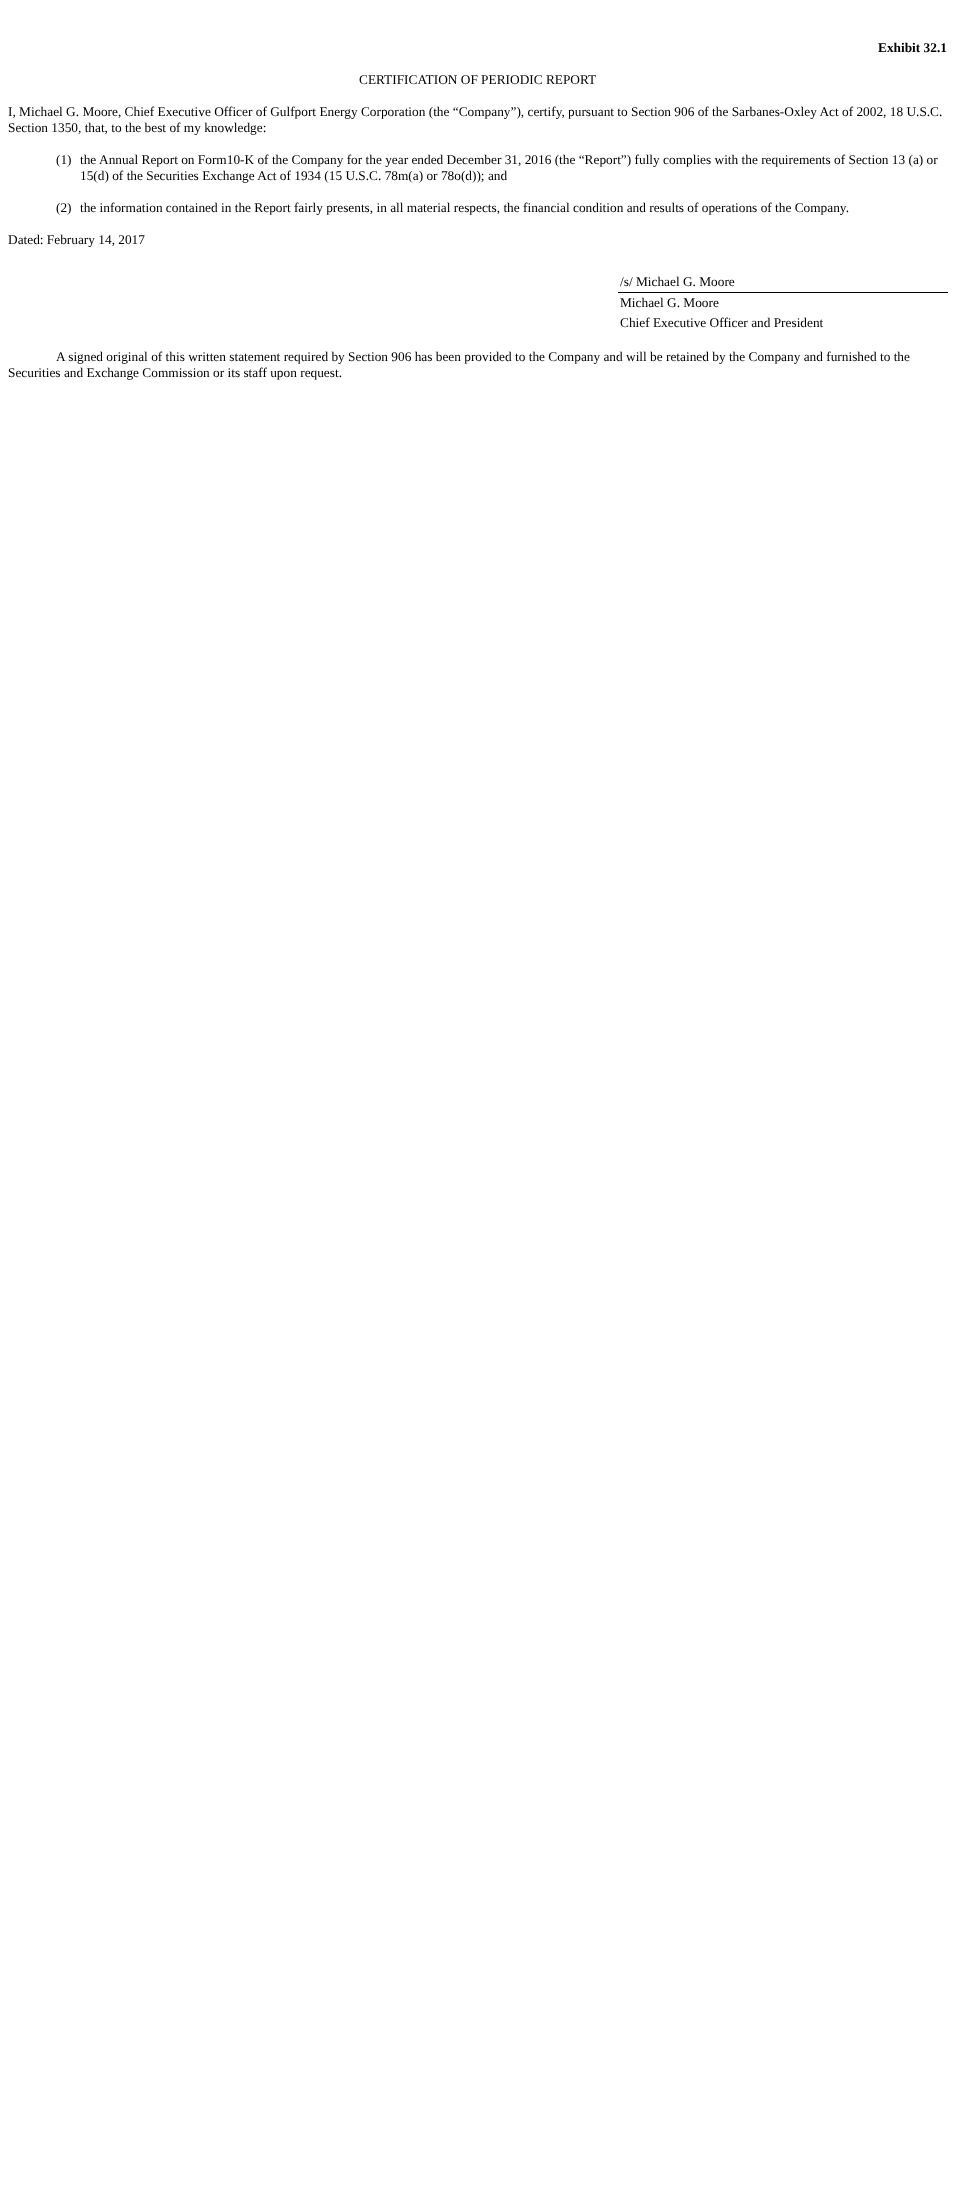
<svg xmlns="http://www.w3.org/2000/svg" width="955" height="2186">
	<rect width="100%" height="100%" fill="#FFFFFF" />
	<text x="878" y="52" font-family="Liberation Serif" font-size="13.33" font-weight="700" fill="#000000">Exhibit 32.1</text>
	<g font-family="Liberation Serif" font-size="13.33" fill="#000000">
		<text x="359" y="84">CERTIFICATION OF PERIODIC REPORT</text>
		<text x="8" y="116">I, Michael G. Moore, Chief Executive Officer of Gulfport Energy Corporation (the “Company”), certify, pursuant to Section 906 of the Sarbanes-Oxley Act of 2002, 18 U.S.C.</text>
		<text x="8" y="132">Section 1350, that, to the best of my knowledge:</text>
		<text x="56" y="164">(1)</text>
		<text x="80" y="164">the</text>
		<text x="99" y="164">Annual Report on Form10-K of the Company for the year ended December 31, 2016 (the “Report”) fully complies with the requirements of Section 13 (a) or</text>
		<text x="80" y="180">15(d) of the Securities Exchange Act of 1934 (15 U.S.C. 78m(a) or 78o(d)); and</text>
		<text x="56" y="212">(2)</text>
		<text x="80" y="212">the information contained in the Report fairly presents, in all material respects, the financial condition and results of operations of the Company.</text>
		<text x="8" y="244">Dated: February 14, 2017</text>
	</g>
	<rect x="618" y="292" width="330" height="1" fill="#000000" />
	<g font-family="Liberation Serif" font-size="13.33" fill="#000000">
		<text x="620" y="286">/s/ Michael G. Moore</text>
		<text x="620" y="307">Michael G. Moore</text>
		<text x="620" y="327">Chief Executive Officer and President</text>
		<text x="56" y="361">A signed original of this written statement required by Section 906 has been provided to the Company and will be retained by the Company and furnished to the</text>
		<text x="8" y="377">Securities and Exchange Commission or its staff upon request.</text>
	</g>
</svg>
